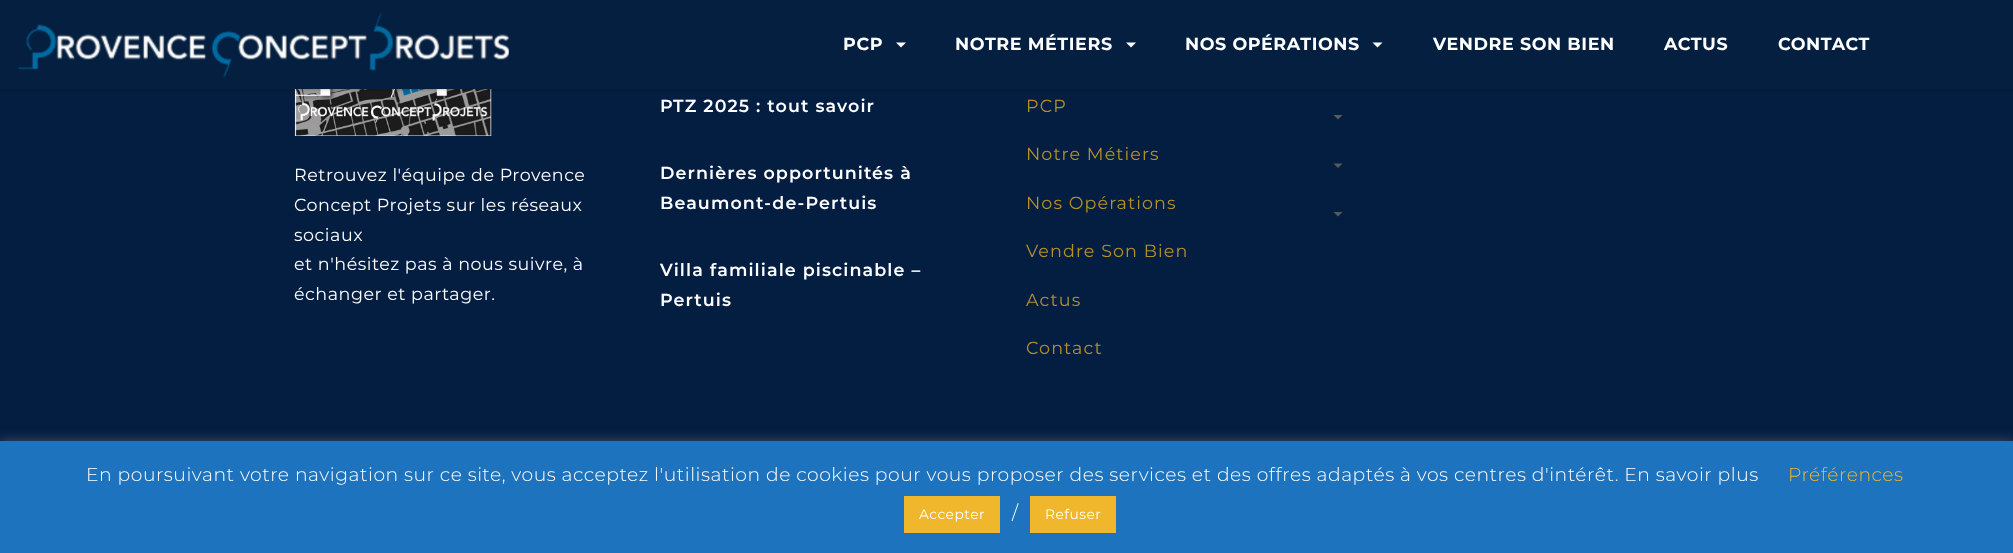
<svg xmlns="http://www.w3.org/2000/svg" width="2013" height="553">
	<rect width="100%" height="100%" fill="#041E42" />
	<image x="294" y="89" width="198" height="47" href="assets/img2.png" />
	<rect x="0" y="-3" width="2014" height="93" fill="#000000" fill-opacity="0.2" filter="blur(1px)" />
	<rect x="0" y="0" width="2013" height="89" fill="#051F40" />
	<image x="18" y="13" width="491" height="64" href="assets/img1.png" />
	<text x="843" y="50" font-family="Montserrat" font-size="17.5" font-weight="700" letter-spacing="0.6" fill="#FFFFFF">PCP</text>
	<path d="M896 42.5H906L901 47.5Z" fill="#FFFFFF" />
	<text x="955" y="50" font-family="Montserrat" font-size="17.5" font-weight="700" letter-spacing="0.6" fill="#FFFFFF">NOTRE MÉTIERS</text>
	<path d="M1126 42.5H1136L1131 47.5Z" fill="#FFFFFF" />
	<text x="1185" y="50" font-family="Montserrat" font-size="17.5" font-weight="700" letter-spacing="0.6" fill="#FFFFFF">NOS OPÉRATIONS</text>
	<path d="M1372.5 42.5H1382.5L1377.5 47.5Z" fill="#FFFFFF" />
	<g font-family="Montserrat" font-size="17.5" font-weight="700" letter-spacing="0.6" fill="#FFFFFF">
		<text x="1433" y="50">VENDRE SON BIEN</text>
		<text x="1664" y="50">ACTUS</text>
		<text x="1778" y="50">CONTACT</text>
	</g>
	<g font-family="Montserrat" font-size="17.5" letter-spacing="0.53" fill="#FFFFFF">
		<text x="294" y="181">Retrouvez l'équipe de Provence</text>
		<text x="294" y="211">Concept Projets sur les réseaux</text>
		<text x="294" y="241">sociaux</text>
		<text x="294" y="270">et n'hésitez pas à nous suivre, à</text>
		<text x="294" y="300">échanger et partager.</text>
	</g>
	<g font-family="Montserrat" font-size="17.5" font-weight="600" letter-spacing="1.1" fill="#FFFFFF">
		<text x="660" y="112">PTZ 2025 : tout savoir</text>
		<text x="660" y="179">Dernières opportunités à</text>
		<text x="660" y="209">Beaumont-de-Pertuis</text>
		<text x="660" y="276">Villa familiale piscinable –</text>
		<text x="660" y="306">Pertuis</text>
	</g>
	<text x="1026" y="112" font-family="Montserrat" font-size="17.5" letter-spacing="1.1" fill="#B49228">PCP</text>
	<path d="M1342.5 115L1338 119.5L1333.5 115Z" fill="#565A5C" />
	<text x="1026" y="160" font-family="Montserrat" font-size="17.5" letter-spacing="1.1" fill="#B49228">Notre Métiers</text>
	<path d="M1342.5 163.5L1338 168L1333.5 163.5Z" fill="#565A5C" />
	<text x="1026" y="209" font-family="Montserrat" font-size="17.5" letter-spacing="1.1" fill="#B49228">Nos Opérations</text>
	<path d="M1342.5 212L1338 216.5L1333.5 212Z" fill="#565A5C" />
	<g font-family="Montserrat" font-size="17.5" letter-spacing="1.1" fill="#B49228">
		<text x="1026" y="257">Vendre Son Bien</text>
		<text x="1026" y="306">Actus</text>
		<text x="1026" y="354">Contact</text>
	</g>
	<rect x="0" y="440" width="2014" height="113" fill="#ACABAB" fill-opacity="0.3" filter="blur(6px)" />
	<rect x="0" y="441" width="2013" height="112" fill="#1E73BE" />
	<text x="86" y="481" font-family="Montserrat" font-size="18.75" font-weight="300" letter-spacing="0.53" fill="#FFFFFF">En poursuivant votre navigation sur ce site, vous acceptez l'utilisation de cookies pour vous proposer des services et des offres adaptés à vos centres d'intérêt. En savoir plus</text>
	<text x="1788" y="481" font-family="Montserrat" font-size="18.75" font-weight="300" letter-spacing="0.53" fill="#F0B72C">Préférences</text>
	<rect x="904" y="496" width="96" height="37" fill="#F0B72C" />
	<text x="919" y="519" font-family="Montserrat" font-size="13.75" letter-spacing="0.53" fill="#FFFFFF">Accepter</text>
	<text x="1012" y="519" font-family="Montserrat" font-size="18.75" font-weight="300" letter-spacing="0.53" fill="#FFFFFF">/</text>
	<rect x="1030" y="496" width="86" height="37" fill="#F0B72C" />
	<text x="1045" y="519" font-family="Montserrat" font-size="13.75" letter-spacing="0.53" fill="#FFFFFF">Refuser</text>
</svg>
